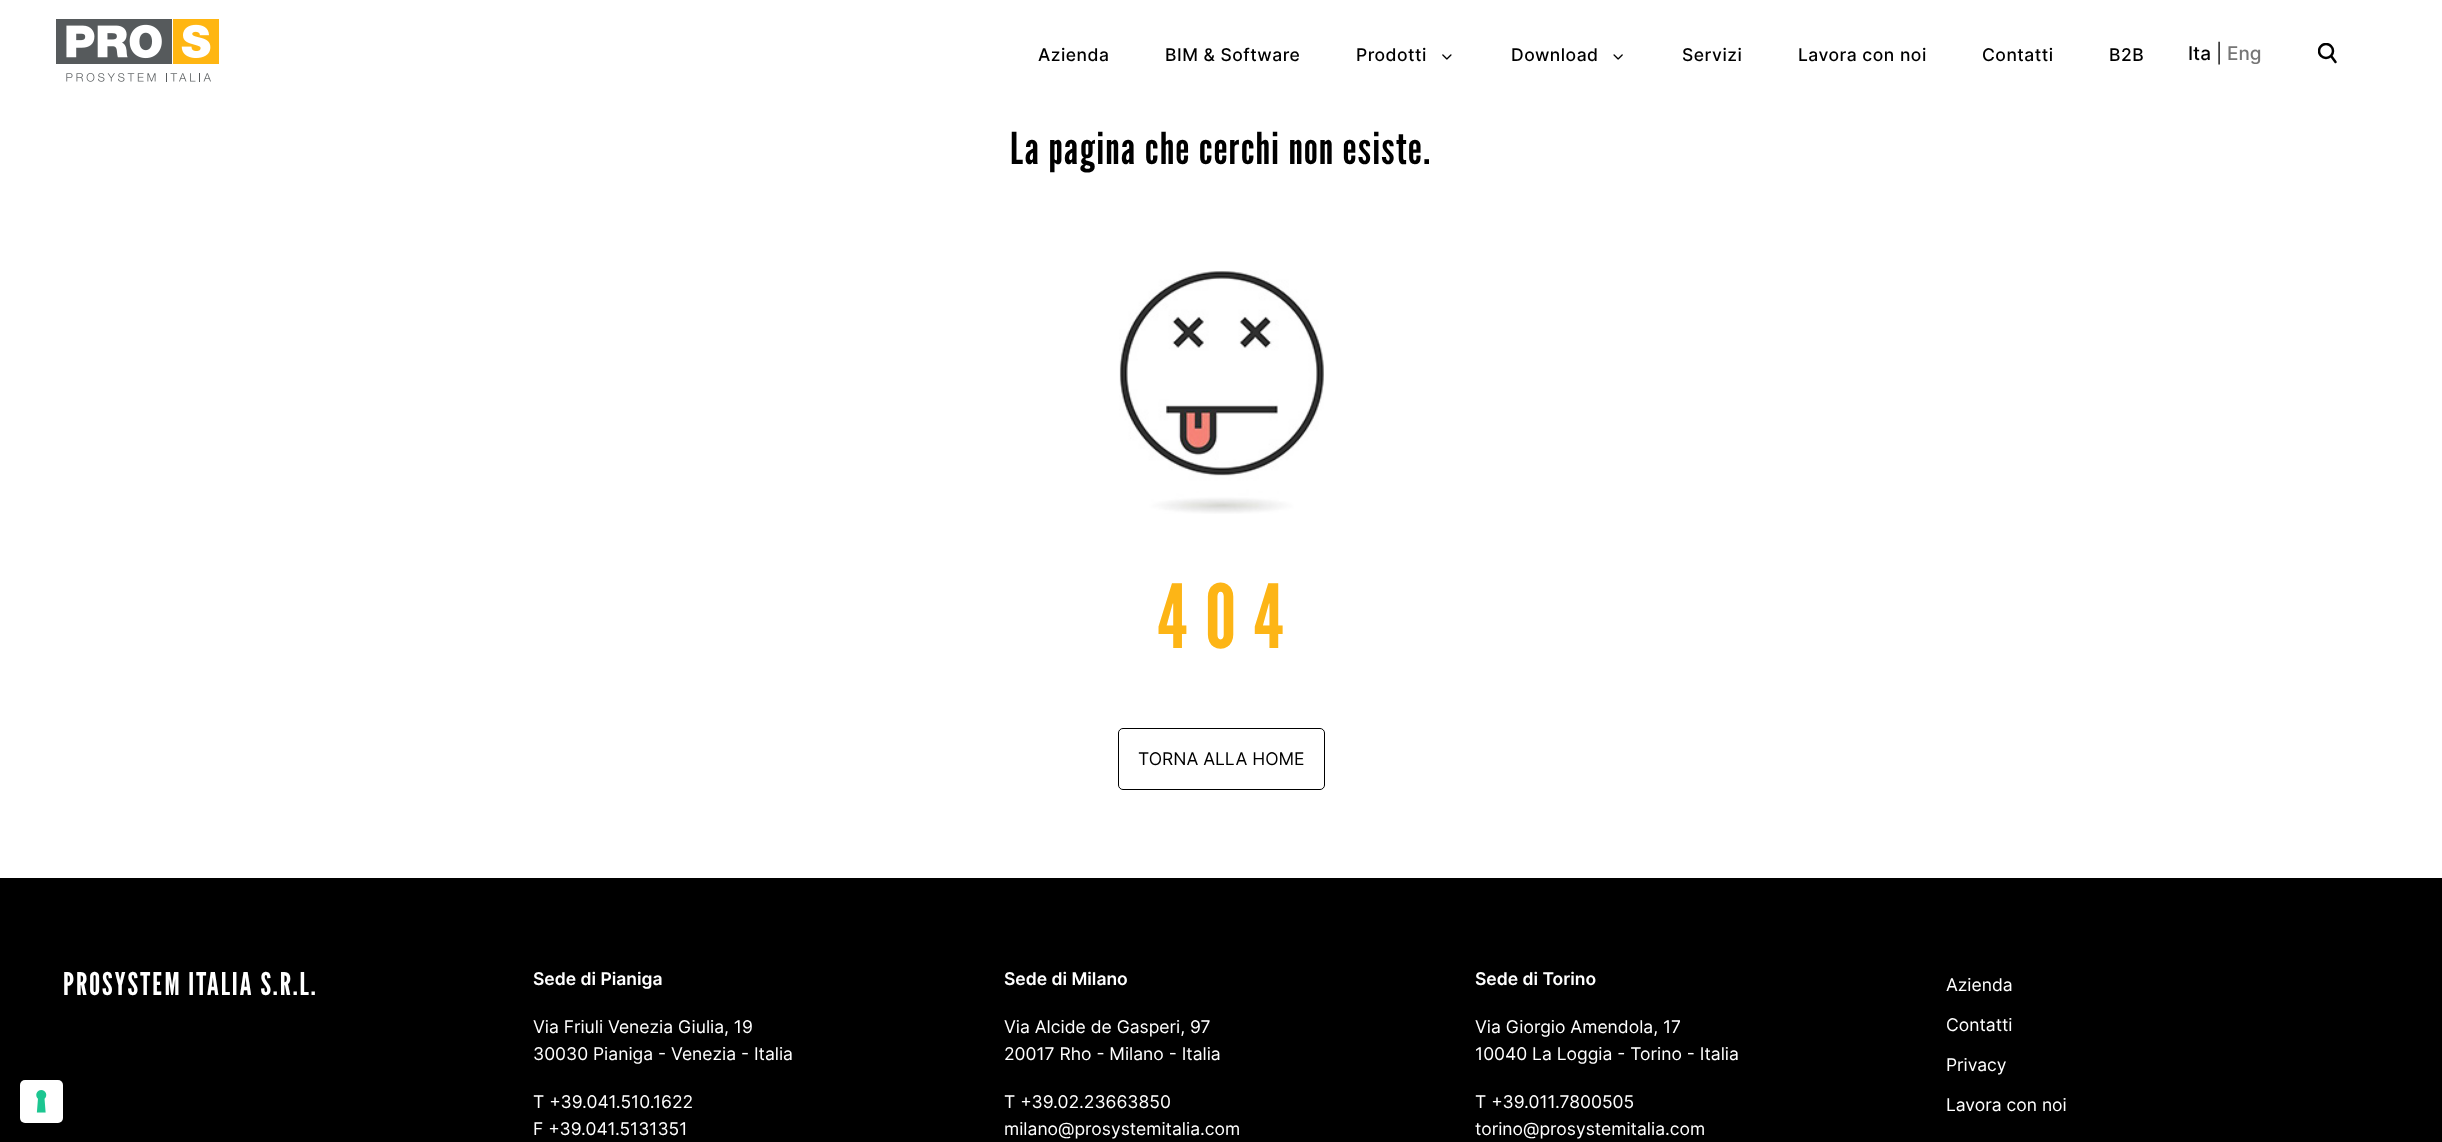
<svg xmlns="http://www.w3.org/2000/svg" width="2442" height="1142">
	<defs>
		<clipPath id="clip1"><rect x="2318" y="43" width="20" height="21" /></clipPath>
	</defs>
	<rect width="100%" height="100%" fill="#FFFFFF" />
	<rect x="0" y="878" width="2442" height="264" fill="#000000" />
	<rect x="20" y="1080" width="43" height="43" rx="5" fill="#FFFFFF" />
	<image x="36" y="1090" width="11" height="23" href="assets/img1.png" />
	<image x="56" y="19" width="163" height="63" href="assets/img2.png" />
	<g font-family="Inter" font-size="17.5" font-weight="500" letter-spacing="0.5" fill="#000000">
		<text x="1038" y="61">Azienda</text>
		<text x="1165" y="61">BIM &amp; Software</text>
		<text x="1356" y="61">Prodotti</text>
	</g>
	<image x="1442" y="54" width="10" height="6" href="assets/img3.png" />
	<text x="1511" y="61" font-family="Inter" font-size="17.5" font-weight="500" letter-spacing="0.5" fill="#000000">Download</text>
	<image x="1613" y="54" width="10" height="6" href="assets/img4.png" />
	<g font-family="Inter" font-size="17.5" font-weight="500" letter-spacing="0.5" fill="#000000">
		<text x="1682" y="61">Servizi</text>
		<text x="1798" y="61">Lavora con noi</text>
		<text x="1982" y="61">Contatti</text>
		<text x="2109" y="61">B2B</text>
	</g>
	<text x="2188" y="60" font-family="Inter" font-size="19" font-weight="500" fill="#000000">Ita</text>
	<text x="2216" y="60" font-family="Inter" font-size="19" fill="#000000">|</text>
	<text x="2227" y="60" font-family="Inter" font-size="19" font-weight="500" fill="#767676">Eng</text>
	<g clip-path="url(#clip1)">
		<circle cx="2326" cy="51" r="7" fill="none" stroke="#000000" stroke-width="2.5" />
	</g>
	<path d="M2335.5 62L2331.5 56.5" fill="none" stroke="#000000" stroke-width="2.5" stroke-linecap="round" stroke-linejoin="round" />
	<text x="1010" y="164" font-family="League Gothic" font-size="43.75" letter-spacing="1.8" fill="#000000">La pagina che cerchi non esiste.</text>
	<image x="1119" y="270" width="205" height="244" href="assets/img5.png" />
	<text x="1157" y="648" font-family="League Gothic" font-size="88" letter-spacing="1.8" fill="#FDB516">4 0 4</text>
	<rect x="1118.5" y="728.5" width="206" height="61" rx="4.5" fill="none" stroke="#000000" />
	<text x="1138" y="765" font-family="Inter" font-size="17.5" fill="#000000">TORNA ALLA HOME</text>
	<text x="63" y="995" font-family="League Gothic" font-size="31.25" letter-spacing="1.9" fill="#FFFFFF">PROSYSTEM ITALIA S.R.L.</text>
	<text x="533" y="985" font-family="Inter" font-size="17.5" font-weight="600" fill="#FFFFFF">Sede di Pianiga</text>
	<g font-family="Inter" font-size="17.5" fill="#FFFFFF">
		<text x="533" y="1033">Via Friuli Venezia Giulia, 19</text>
		<text x="533" y="1060">30030 Pianiga - Venezia - Italia</text>
		<text x="533" y="1108">T +39.041.510.1622</text>
		<text x="533" y="1135">F +39.041.5131351</text>
	</g>
	<text x="1004" y="985" font-family="Inter" font-size="17.5" font-weight="600" fill="#FFFFFF">Sede di Milano</text>
	<g font-family="Inter" font-size="17.5" fill="#FFFFFF">
		<text x="1004" y="1033">Via Alcide de Gasperi, 97</text>
		<text x="1004" y="1060">20017 Rho - Milano - Italia</text>
		<text x="1004" y="1108">T +39.02.23663850</text>
		<text x="1004" y="1135">milano@prosystemitalia.com</text>
	</g>
	<text x="1475" y="985" font-family="Inter" font-size="17.5" font-weight="600" fill="#FFFFFF">Sede di Torino</text>
	<g font-family="Inter" font-size="17.5" fill="#FFFFFF">
		<text x="1475" y="1033">Via Giorgio Amendola, 17</text>
		<text x="1475" y="1060">10040 La Loggia - Torino - Italia</text>
		<text x="1475" y="1108">T +39.011.7800505</text>
		<text x="1475" y="1135">torino@prosystemitalia.com</text>
		<text x="1946" y="991">Azienda</text>
		<text x="1946" y="1031">Contatti</text>
		<text x="1946" y="1071">Privacy</text>
		<text x="1946" y="1111">Lavora con noi</text>
	</g>
</svg>
